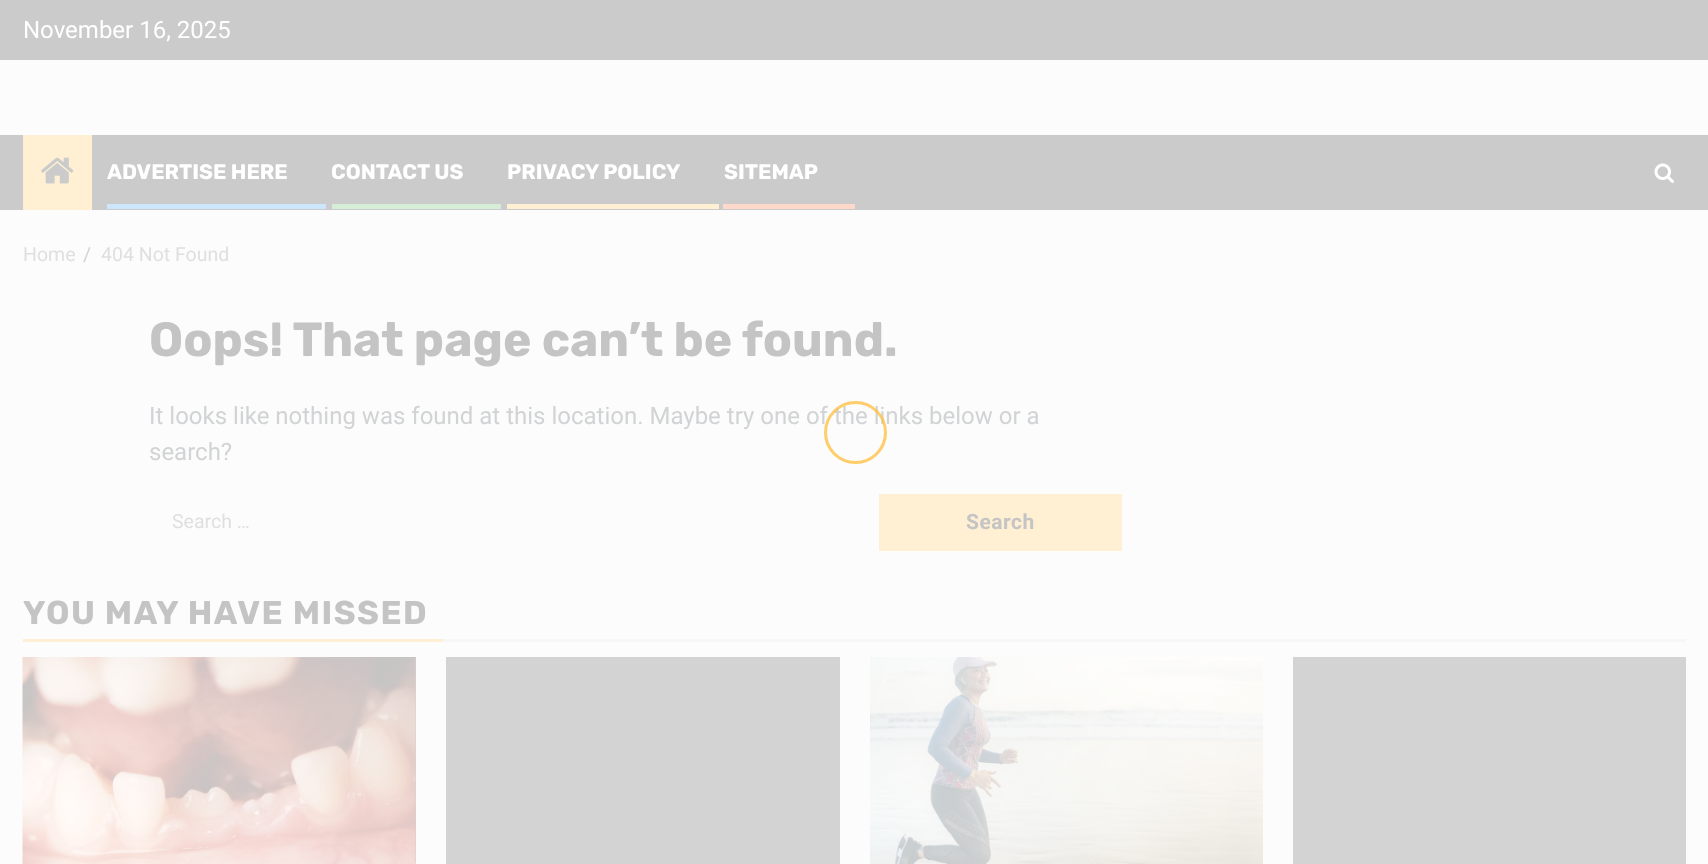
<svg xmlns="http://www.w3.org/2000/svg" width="1708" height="864">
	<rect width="100%" height="100%" fill="#FCFCFC" />
	<rect x="0" y="0" width="1708" height="60" fill="#CBCBCB" />
	<text x="23" y="38" font-family="Roboto" font-size="24" fill="#FFFFFF">November 16, 2025</text>
	<rect x="0" y="135" width="1708" height="75" fill="#CBCBCB" />
	<rect x="23" y="135" width="69" height="75" fill="#FFF0D3" />
	<image x="41" y="157" width="33" height="27" href="assets/img1.png" />
	<text x="107" y="179" font-family="Rubik" font-size="21" font-weight="700" fill="#FFFFFF">ADVERTISE HERE</text>
	<rect x="107" y="204" width="219" height="5" fill="#CCE7FC" />
	<text x="331" y="179" font-family="Rubik" font-size="21" font-weight="700" fill="#FFFFFF">CONTACT US</text>
	<rect x="332" y="204" width="169" height="5" fill="#D6EDD7" />
	<text x="507" y="179" font-family="Rubik" font-size="21" font-weight="700" fill="#FFFFFF">PRIVACY POLICY</text>
	<rect x="507" y="204" width="212" height="5" fill="#FFF0D3" />
	<text x="724" y="179" font-family="Rubik" font-size="21" font-weight="700" fill="#FFFFFF">SITEMAP</text>
	<rect x="723" y="204" width="132" height="5" fill="#FFD8CC" />
	<image x="1654" y="163" width="20" height="20" href="assets/img2.png" />
	<text x="23" y="261" font-family="Roboto" font-size="19.5" fill="#DFDFDF">Home</text>
	<text x="83" y="261" font-family="Roboto" font-size="19.5" fill="#D1D3D4">/</text>
	<text x="101" y="261" font-family="Roboto" font-size="19.5" fill="#DFDFDF">404 Not Found</text>
	<text x="149" y="356" font-family="Rubik" font-size="48" font-weight="700" fill="#C4C4C4">Oops! That page can’t be found.</text>
	<g font-family="Roboto" font-size="24" fill="#D1D3D4">
		<text x="149" y="424">It looks like nothing was found at this location. Maybe try one of the links below or a</text>
		<text x="149" y="460">search?</text>
	</g>
	<text x="172" y="528" font-family="Roboto" font-size="19.5" fill="#DFDFDF">Search …</text>
	<rect x="879" y="494" width="243" height="57" fill="#FFF0D3" />
	<text x="966" y="529" font-family="Roboto" font-size="21" font-weight="700" letter-spacing="0.5" fill="#C4C4C4">Search</text>
	<rect x="23" y="639" width="420" height="3" fill="#FFF0D3" />
	<text x="23" y="624" font-family="Rubik" font-size="33" font-weight="700" letter-spacing="1.5" fill="#C4C4C4">YOU MAY HAVE MISSED</text>
	<rect x="443" y="639" width="1243" height="3" fill="#F7F7F7" />
	<rect x="415" y="657" width="1" height="207" fill="#D3D3D3" />
	<image x="22" y="657" width="394" height="207" href="assets/img3.png" />
	<rect x="446" y="657" width="394" height="207" fill="#D3D3D3" />
	<image x="870" y="657" width="393" height="207" href="assets/img4.png" />
	<rect x="1293" y="657" width="393" height="207" fill="#D3D3D3" />
	<circle cx="855.5" cy="432.5" r="30" fill="none" stroke="#FFBF3F" stroke-opacity="0.77" stroke-width="3" />
</svg>
